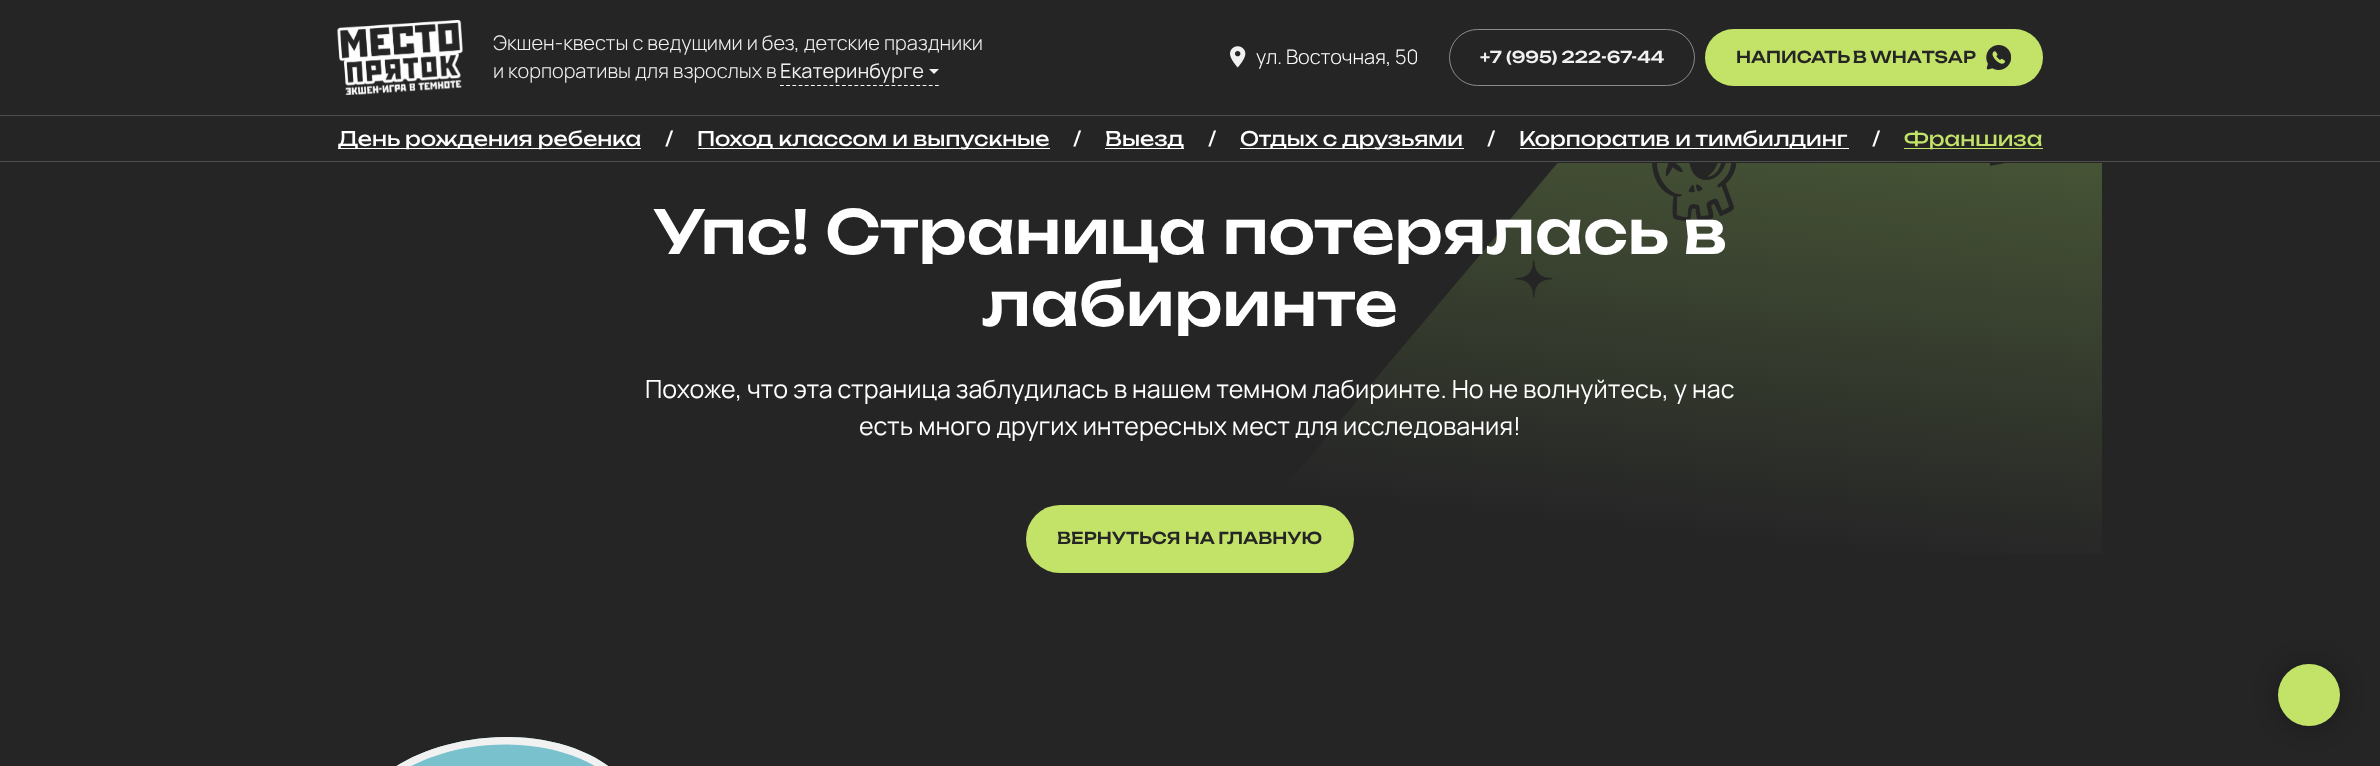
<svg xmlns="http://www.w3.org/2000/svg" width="2380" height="766">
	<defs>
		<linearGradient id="g1" gradientUnits="userSpaceOnUse" x1="1959" y1="-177" x2="1882" y2="555"><stop offset="0" stop-color="#607841" /><stop offset="1" stop-color="#252526" /></linearGradient>
	</defs>
	<rect width="100%" height="100%" fill="#252526" />
	<path d="M1228 554L1845-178H2102V554Z" fill="url(#g1)" />
	<image x="1652" y="163" width="85" height="58" href="assets/img1.png" />
	<image x="1989" y="163" width="17" height="3" href="assets/img2.png" />
	<image x="1515" y="260" width="38" height="38" href="assets/img3.png" />
	<rect x="1557" y="0" width="545" height="163" fill="#252526" />
	<image x="337" y="20" width="126" height="75" href="assets/img4.png" />
	<g font-family="Manrope" font-size="20" font-weight="300" fill="#F1F1F1">
		<text x="493" y="50">Экшен-квесты с ведущими и без, детские праздники</text>
		<text x="493" y="78">и корпоративы для взрослых в</text>
	</g>
	<text x="780" y="78" font-family="Manrope" font-size="20" fill="#F1F1F1">Екатеринбурге</text>
	<path d="M929 69H939L934 74Z" fill="#F1F1F1" />
	<path d="M780 85.5H939" fill="none" stroke="#FFFFFF" stroke-width="1.2" stroke-dasharray="3.75 2.45" />
	<image x="1230" y="46" width="16" height="22" href="assets/img5.png" />
	<text x="1256" y="64" font-family="Manrope" font-size="20" font-weight="300" fill="#FFFFFF">ул. Восточная, 50</text>
	<rect x="1449.5" y="29.5" width="245" height="56" rx="28" fill="none" stroke="#8B8B8C" />
	<text x="1480" y="63" font-family="Unbounded" font-size="16.25" font-weight="500" fill="#F1F1F1">+7 (995) 222-67-44</text>
	<rect x="1705" y="29" width="338" height="57" rx="28.5" fill="#C3E368" />
	<text x="1736" y="63" word-spacing="-1" font-family="Unbounded" font-size="16.25" font-weight="500" fill="#252526">НАПИСАТЬ В WHATSAP</text>
	<image x="1986" y="45" width="25" height="25" href="assets/img6.png" />
	<rect x="0" y="115" width="2380" height="1" fill="#4E4E4F" />
	<rect x="0" y="161" width="2380" height="1" fill="#4E4E4F" />
	<rect x="338" y="148" width="303" height="1" fill="#FFFFFF" />
	<g font-family="Unbounded" font-size="20" fill="#FFFFFF">
		<text x="338" y="146">День рождения ребенка</text>
		<text x="665" y="146">/</text>
	</g>
	<rect x="698" y="148" width="352" height="1" fill="#FFFFFF" />
	<g font-family="Unbounded" font-size="20" fill="#FFFFFF">
		<text x="697" y="146">Поход классом и выпускные</text>
		<text x="1073" y="146">/</text>
	</g>
	<rect x="1105" y="148" width="79" height="1" fill="#FFFFFF" />
	<g font-family="Unbounded" font-size="20" fill="#FFFFFF">
		<text x="1105" y="146">Выезд</text>
		<text x="1208" y="146">/</text>
	</g>
	<rect x="1240" y="148" width="224" height="1" fill="#FFFFFF" />
	<g font-family="Unbounded" font-size="20" fill="#FFFFFF">
		<text x="1240" y="146">Отдых с друзьями</text>
		<text x="1487" y="146">/</text>
	</g>
	<rect x="1520" y="148" width="329" height="1" fill="#FFFFFF" />
	<g font-family="Unbounded" font-size="20" fill="#FFFFFF">
		<text x="1519" y="146">Корпоратив и тимбилдинг</text>
		<text x="1872" y="146">/</text>
	</g>
	<rect x="1904" y="148" width="139" height="1" fill="#C3E368" />
	<text x="1904" y="146" font-family="Unbounded" font-size="20" fill="#C3E368">Франшиза</text>
	<g font-family="Unbounded" font-size="60" font-weight="500" fill="#FFFFFF">
		<text x="653" y="254" word-spacing="0.5">Упс! Страница потерялась в</text>
		<text x="982" y="326">лабиринте</text>
	</g>
	<g font-family="Manrope" font-size="25" fill="#FFFFFF">
		<text x="645" y="398">Похоже, что эта страница заблудилась в нашем темном лабиринте. Но не волнуйтесь, у нас</text>
		<text x="859" y="435">есть много других интересных мест для исследования!</text>
	</g>
	<rect x="1026" y="505" width="328" height="68" rx="34" fill="#C3E368" />
	<text x="1057" y="544" font-family="Unbounded" font-size="16.25" font-weight="500" fill="#252526">ВЕРНУТЬСЯ НА ГЛАВНУЮ</text>
	<image x="396" y="737" width="212" height="29" href="assets/img7.png" />
	<rect x="2278" y="664" width="62" height="62" rx="31" fill="#000000" fill-opacity="0.3" filter="blur(12.5px)" />
	<circle cx="2309" cy="695" r="31" fill="#C3E368" />
</svg>
